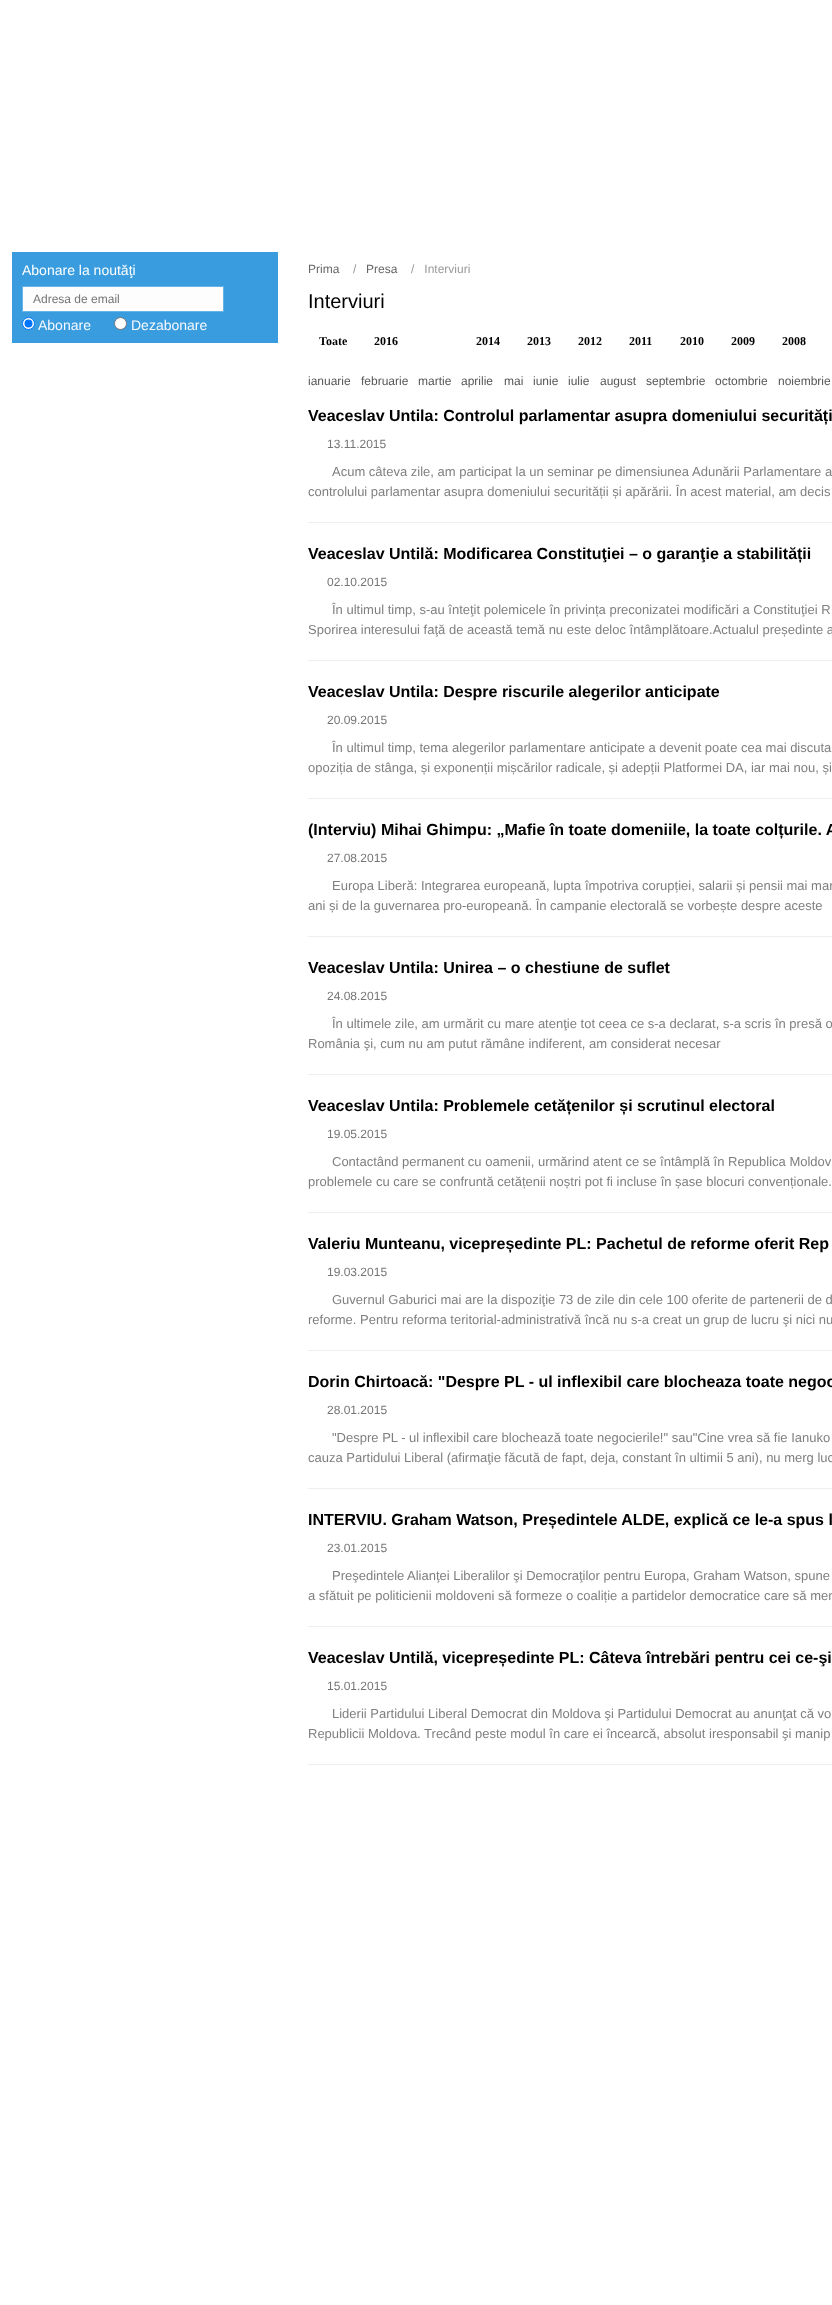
<svg xmlns="http://www.w3.org/2000/svg" width="832" height="2305">
	<rect width="100%" height="100%" fill="#FFFFFF" />
	<rect x="12" y="252" width="266" height="91" fill="#389CDF" />
	<text x="22" y="275" font-family="Liberation Sans" font-size="14" fill="#FEFFFF">Abonare la noutăţi</text>
	<rect x="22.5" y="286.5" width="201" height="25" fill="#FDFDFD" stroke="#66B3E8" />
	<text x="33" y="303" font-family="Liberation Sans" font-size="12" fill="#757575">Adresa de email</text>
	<circle cx="28.5" cy="323.5" r="6" fill="#FFFFFF" stroke="#0075FF" />
	<circle cx="28.5" cy="323.5" r="4" fill="#0075FF" />
	<text x="38" y="330" font-family="Liberation Sans" font-size="14" fill="#F6F9FF">Abonare</text>
	<circle cx="120.5" cy="323.5" r="6" fill="#FFFFFF" stroke="#767676" />
	<text x="131" y="330" font-family="Liberation Sans" font-size="14" fill="#F6F9FF">Dezabonare</text>
	<text x="308" y="273" font-family="Liberation Sans" font-size="12" fill="#676666">Prima</text>
	<text x="353" y="273" font-family="Liberation Sans" font-size="12" fill="#999999">/</text>
	<text x="366" y="273" font-family="Liberation Sans" font-size="12" fill="#676666">Presa</text>
	<text x="411" y="273" font-family="Liberation Sans" font-size="12" fill="#999999" xml:space="preserve">/   Interviuri</text>
	<text x="308" y="308" font-family="Liberation Sans" font-size="20" fill="#000000">Interviuri</text>
	<g font-family="Liberation Serif" font-size="12" font-weight="700" fill="#000000">
		<text x="319" y="345">Toate</text>
		<text x="374" y="345">2016</text>
		<text x="476" y="345">2014</text>
		<text x="527" y="345">2013</text>
		<text x="578" y="345">2012</text>
		<text x="629" y="345">2011</text>
		<text x="680" y="345">2010</text>
		<text x="731" y="345">2009</text>
		<text x="782" y="345">2008</text>
	</g>
	<g font-family="Liberation Sans" font-size="12" fill="#575757">
		<text x="308" y="385">ianuarie</text>
		<text x="361" y="385">februarie</text>
		<text x="418" y="385">martie</text>
		<text x="461" y="385">aprilie</text>
		<text x="504" y="385">mai</text>
		<text x="533" y="385">iunie</text>
		<text x="568" y="385">iulie</text>
		<text x="600" y="385">august</text>
		<text x="646" y="385">septembrie</text>
		<text x="715" y="385">octombrie</text>
		<text x="778" y="385">noiembrie</text>
	</g>
	<rect x="308" y="522" width="524" height="1" fill="#EEEEEE" />
	<text x="308" y="421" font-family="Liberation Sans" font-size="16" font-weight="700" fill="#000000">Veaceslav Untila: Controlul parlamentar asupra domeniului securități</text>
	<text x="327" y="448" font-family="Liberation Sans" font-size="12" fill="#757575">13.11.2015</text>
	<g font-family="Liberation Sans" font-size="13" fill="#807F7F">
		<text x="332" y="476">Acum câteva zile, am participat la un seminar pe dimensiunea</text>
		<text x="692" y="476">Adunării Parlamentare a</text>
		<text x="308" y="496">controlului parlamentar asupra domeniului securității și apărării. În acest material, am decis</text>
	</g>
	<rect x="308" y="660" width="524" height="1" fill="#EEEEEE" />
	<text x="308" y="559" font-family="Liberation Sans" font-size="16" font-weight="700" fill="#000000">Veaceslav Untilă: Modificarea Constituţiei – o garanţie a stabilității</text>
	<text x="327" y="586" font-family="Liberation Sans" font-size="12" fill="#757575">02.10.2015</text>
	<g font-family="Liberation Sans" font-size="13" fill="#807F7F">
		<text x="332" y="614">În ultimul timp, s-au înteţit polemicele în privința preconizatei modificări a Constituţiei R</text>
		<text x="308" y="634">Sporirea interesului faţă de această temă nu este deloc întâmplătoare.Actualul președinte a</text>
	</g>
	<rect x="308" y="798" width="524" height="1" fill="#EEEEEE" />
	<text x="308" y="697" font-family="Liberation Sans" font-size="16" font-weight="700" fill="#000000">Veaceslav Untila: Despre riscurile alegerilor anticipate</text>
	<text x="327" y="724" font-family="Liberation Sans" font-size="12" fill="#757575">20.09.2015</text>
	<g font-family="Liberation Sans" font-size="13" fill="#807F7F">
		<text x="332" y="752">În ultimul timp, tema alegerilor parlamentare anticipate a devenit poate cea mai discuta</text>
		<text x="308" y="772">opoziția de stânga, și exponenții mișcărilor radicale, și adepții Platformei DA, iar mai nou, și</text>
	</g>
	<rect x="308" y="936" width="524" height="1" fill="#EEEEEE" />
	<text x="308" y="835" font-family="Liberation Sans" font-size="16" font-weight="700" fill="#000000">(Interviu) Mihai Ghimpu: „Mafie în toate domeniile, la toate colțurile. A</text>
	<text x="327" y="862" font-family="Liberation Sans" font-size="12" fill="#757575">27.08.2015</text>
	<g font-family="Liberation Sans" font-size="13" fill="#807F7F">
		<text x="332" y="890">Europa Liberă: Integrarea europeană, lupta împotriva corupției, salarii și pensii mai mar</text>
		<text x="308" y="910">ani și de la guvernarea pro-europeană. În campanie electorală se vorbește despre aceste</text>
	</g>
	<rect x="308" y="1074" width="524" height="1" fill="#EEEEEE" />
	<text x="308" y="973" font-family="Liberation Sans" font-size="16" font-weight="700" fill="#000000">Veaceslav Untila: Unirea – o chestiune de suflet</text>
	<text x="327" y="1000" font-family="Liberation Sans" font-size="12" fill="#757575">24.08.2015</text>
	<g font-family="Liberation Sans" font-size="13" fill="#807F7F">
		<text x="332" y="1028">În ultimele zile, am urmărit cu mare atenţie tot ceea ce s-a declarat, s-a scris în presă o</text>
		<text x="308" y="1048">România şi, cum nu am putut rămâne indiferent, am considerat necesar</text>
	</g>
	<rect x="308" y="1212" width="524" height="1" fill="#EEEEEE" />
	<text x="308" y="1111" font-family="Liberation Sans" font-size="16" font-weight="700" fill="#000000">Veaceslav Untila: Problemele cetățenilor și scrutinul electoral</text>
	<text x="327" y="1138" font-family="Liberation Sans" font-size="12" fill="#757575">19.05.2015</text>
	<g font-family="Liberation Sans" font-size="13" fill="#807F7F">
		<text x="332" y="1166">Contactând permanent cu oamenii, urmărind atent ce se întâmplă în Republica Moldov</text>
		<text x="308" y="1186">problemele cu care se confruntă cetățenii noștri pot fi incluse în șase blocuri convenționale.</text>
	</g>
	<rect x="308" y="1350" width="524" height="1" fill="#EEEEEE" />
	<text x="308" y="1249" font-family="Liberation Sans" font-size="16" font-weight="700" fill="#000000">Valeriu Munteanu, vicepreședinte PL: Pachetul de reforme oferit Rep</text>
	<text x="327" y="1276" font-family="Liberation Sans" font-size="12" fill="#757575">19.03.2015</text>
	<g font-family="Liberation Sans" font-size="13" fill="#807F7F">
		<text x="332" y="1304">Guvernul Gaburici mai are la dispoziţie 73 de zile din cele 100 oferite de partenerii de d</text>
		<text x="308" y="1324">reforme. Pentru reforma teritorial-administrativă încă nu s-a creat un grup de lucru şi nici nu</text>
	</g>
	<rect x="308" y="1488" width="524" height="1" fill="#EEEEEE" />
	<text x="308" y="1387" font-family="Liberation Sans" font-size="16" font-weight="700" fill="#000000">Dorin Chirtoacă: "Despre PL - ul inflexibil care blocheaza toate negoc</text>
	<text x="327" y="1414" font-family="Liberation Sans" font-size="12" fill="#757575">28.01.2015</text>
	<g font-family="Liberation Sans" font-size="13" fill="#807F7F">
		<text x="332" y="1442">"Despre PL - ul inflexibil care blochează toate negocierile!" sau"Cine vrea să fie Ianuko</text>
		<text x="308" y="1462">cauza Partidului Liberal (afirmaţie făcută de fapt, deja, constant în ultimii 5 ani), nu merg luc</text>
	</g>
	<rect x="308" y="1626" width="524" height="1" fill="#EEEEEE" />
	<text x="308" y="1525" font-family="Liberation Sans" font-size="16" font-weight="700" fill="#000000">INTERVIU. Graham Watson, Președintele ALDE, explică ce le-a spus l</text>
	<text x="327" y="1552" font-family="Liberation Sans" font-size="12" fill="#757575">23.01.2015</text>
	<g font-family="Liberation Sans" font-size="13" fill="#807F7F">
		<text x="332" y="1580">Preşedintele</text>
		<text x="407" y="1580">Alianţei Liberalilor şi Democraţilor pentru Europa, Graham Watson, spune</text>
		<text x="308" y="1600">a sfătuit pe politicienii moldoveni să formeze o coaliție a partidelor democratice care să men</text>
	</g>
	<rect x="308" y="1764" width="524" height="1" fill="#EEEEEE" />
	<text x="308" y="1663" font-family="Liberation Sans" font-size="16" font-weight="700" fill="#000000">Veaceslav Untilă, vicepreședinte PL: Câteva întrebări pentru cei ce-şi</text>
	<text x="327" y="1690" font-family="Liberation Sans" font-size="12" fill="#757575">15.01.2015</text>
	<g font-family="Liberation Sans" font-size="13" fill="#807F7F">
		<text x="332" y="1718">Liderii Partidului Liberal Democrat din Moldova şi Partidului Democrat au anunţat că vo</text>
		<text x="308" y="1738">Republicii Moldova. Trecând peste modul în care ei încearcă, absolut iresponsabil şi manip</text>
	</g>
</svg>
